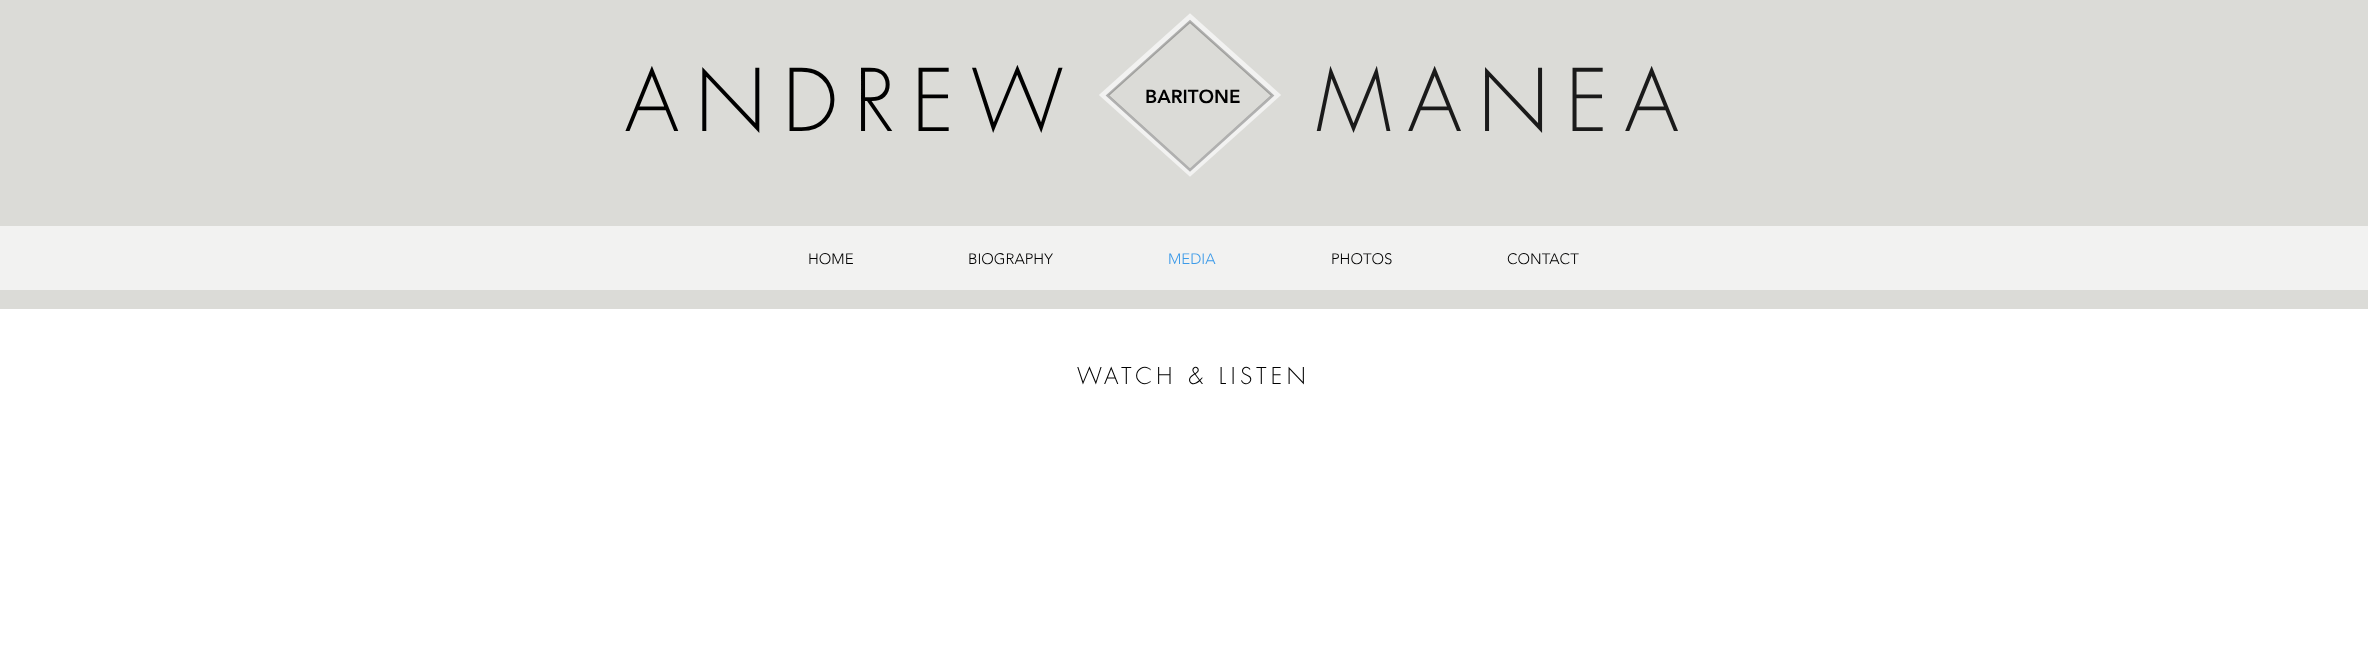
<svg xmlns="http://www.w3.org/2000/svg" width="2368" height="658">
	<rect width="100%" height="100%" fill="#FFFFFF" />
	<rect x="0" y="0" width="2368" height="309" fill="#DBDBD7" />
	<path d="M1276.5 95L1190 172.5L1103.5 95L1190 17.5Z" fill="none" stroke="#F2F2F1" stroke-width="6.2" />
	<text x="625" y="131" font-family="futura" font-size="83.75" font-weight="300" letter-spacing="16.75" fill="#000000">ANDREW</text>
	<path d="M1272.5 95.5L1190 170L1107.5 95.5L1190 21.5Z" fill="none" stroke="#000000" stroke-opacity="0.27" stroke-width="2.5" />
	<text x="1316" y="131" font-family="futura" font-size="83.75" font-weight="300" letter-spacing="16.75" fill="#1A1A1A">MANEA</text>
	<text x="1145" y="103" font-family="'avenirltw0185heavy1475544'" font-size="18.75" font-weight="900" fill="#000000">BARITONE</text>
	<rect x="0" y="226" width="2368" height="64" fill="#F2F2F1" />
	<g font-family="'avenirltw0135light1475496'" font-size="15" font-weight="300" fill="#000000">
		<text x="808" y="264">HOME</text>
		<text x="968" y="264">BIOGRAPHY</text>
	</g>
	<text x="1168" y="264" font-family="'avenirltw0135light1475496'" font-size="15" font-weight="300" fill="#3D9BE9">MEDIA</text>
	<g font-family="'avenirltw0135light1475496'" font-size="15" font-weight="300" fill="#000000">
		<text x="1331" y="264">PHOTOS</text>
		<text x="1507" y="264">CONTACT</text>
	</g>
	<text x="1077" y="384" font-family="futura" font-size="22.5" font-weight="300" letter-spacing="4.5" fill="#000000">WATCH &amp; LISTEN</text>
</svg>
